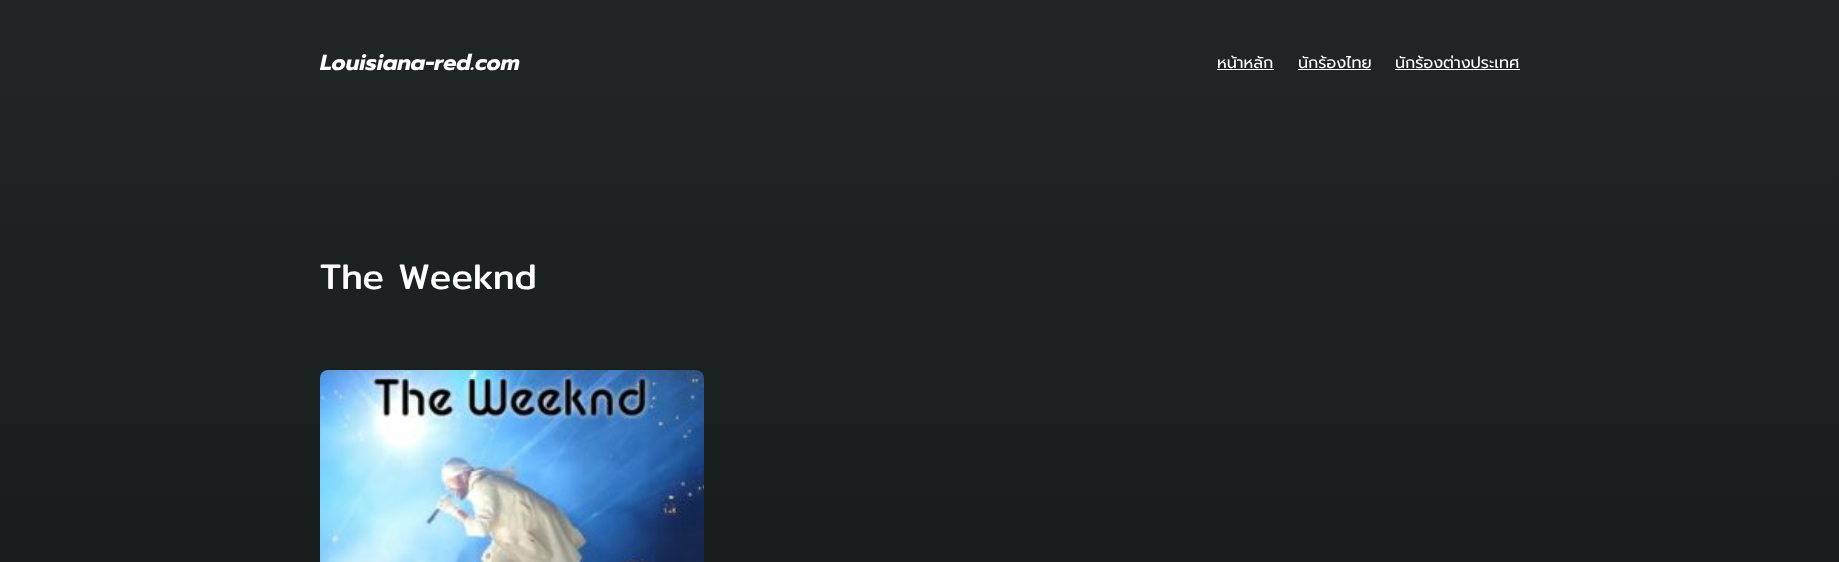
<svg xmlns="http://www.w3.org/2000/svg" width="1839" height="562">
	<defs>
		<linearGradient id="g1" gradientUnits="userSpaceOnUse" x1="919" y1="0" x2="920" y2="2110"><stop offset="0" stop-color="#202626" /><stop offset="1" stop-color="#010101" /></linearGradient>
	</defs>
	<rect width="100%" height="100%" fill="#FFFFFF" />
	<rect x="0" y="0" width="1839" height="562" fill="url(#g1)" />
	<text x="320" y="70" font-family="Prompt" font-size="22" font-weight="700" font-style="italic" fill="#FFFFFF">Louisiana-red.com</text>
	<text x="1217" y="68" font-family="Prompt" font-size="16" fill="#FFFFFF">หน้าหลัก</text>
	<rect x="1217" y="69" width="57" height="1" fill="#FFFFFF" />
	<text x="1298" y="68" font-family="Prompt" font-size="16" fill="#FFFFFF">นักร้องไทย</text>
	<rect x="1298" y="69" width="73" height="1" fill="#FFFFFF" />
	<text x="1395" y="68" font-family="Prompt" font-size="16" fill="#FFFFFF">นักร้องต่างประเทศ</text>
	<rect x="1395" y="69" width="125" height="1" fill="#FFFFFF" />
	<text x="320" y="289" font-family="Mitr" font-size="36" fill="#FFFFFF">The Weeknd</text>
	<image x="320" y="370" width="384" height="192" href="assets/img1.png" />
</svg>
